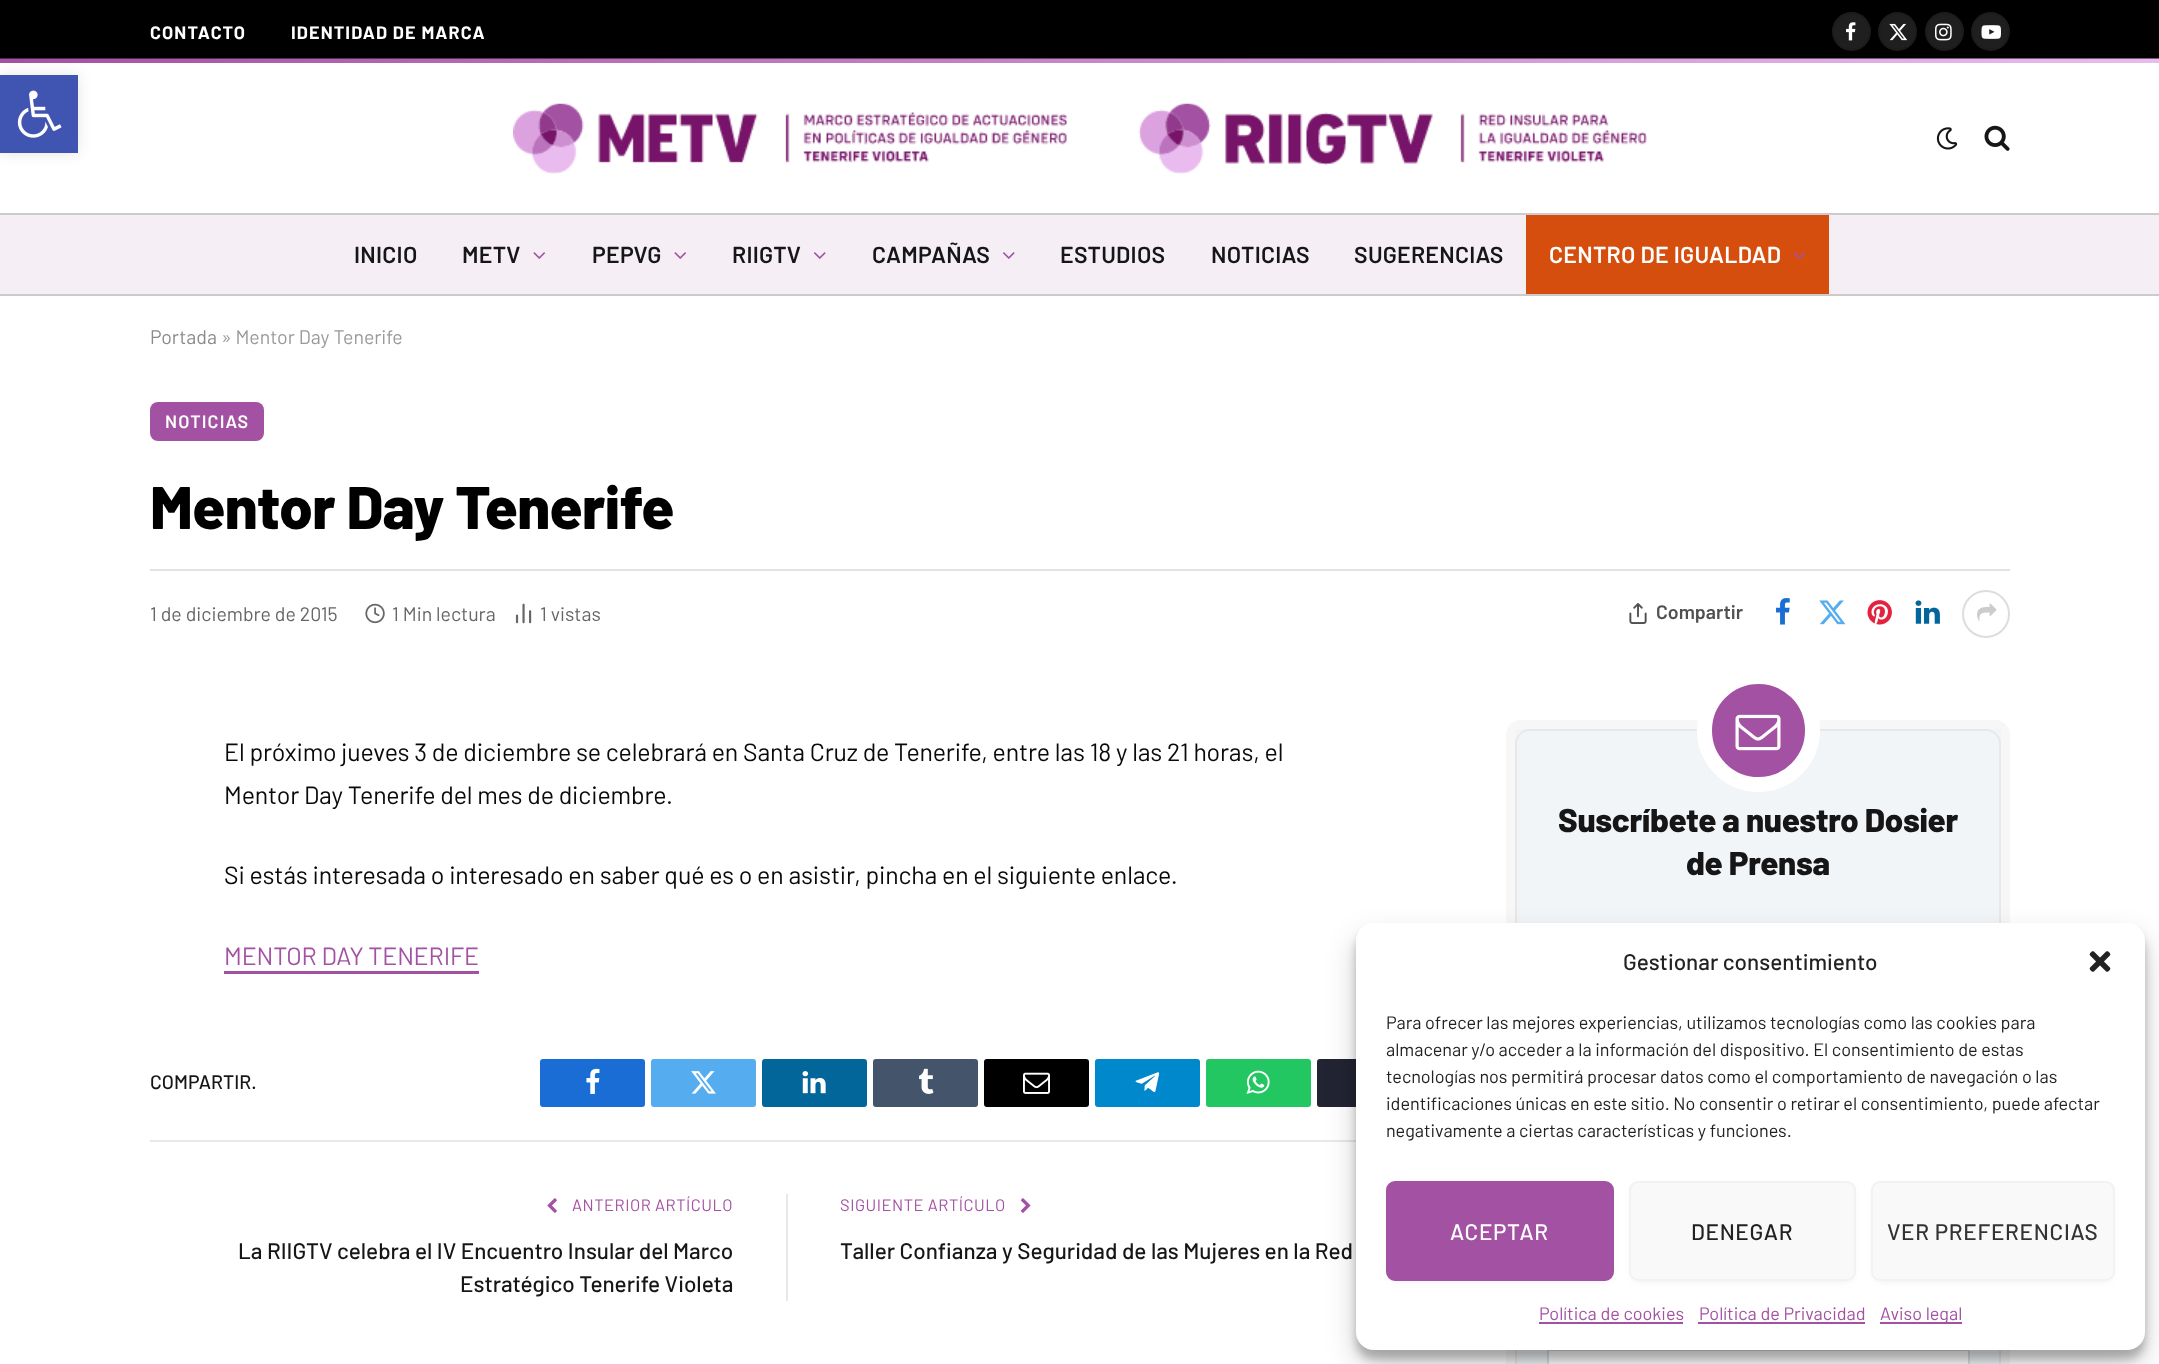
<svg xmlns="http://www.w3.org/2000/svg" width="2159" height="1364">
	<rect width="100%" height="100%" fill="#FFFFFF" />
	<rect x="0" y="0" width="2159" height="59" fill="#000000" />
	<image x="0" y="58" width="2159" height="5" href="assets/img2.png" />
	<rect x="0" y="75" width="78" height="78" fill="#000000" fill-opacity="0.1" filter="blur(7.5px)" />
	<rect x="0" y="75" width="78" height="78" fill="#4054B2" />
	<image x="17" y="90" width="45" height="48" href="assets/img1.png" />
	<g font-family="Barlow" font-size="18" font-weight="700" letter-spacing="1.1" fill="#FFFFFF">
		<text x="150" y="39">CONTACTO</text>
		<text x="291" y="39">IDENTIDAD DE MARCA</text>
	</g>
	<circle cx="1851.5" cy="31.5" r="19.5" fill="#1F1F1F" />
	<circle cx="1851.5" cy="31.5" r="18.5" fill="none" stroke="#000000" stroke-opacity="0.09" stroke-width="2" />
	<image x="1846" y="22" width="10" height="19" href="assets/img3.png" />
	<circle cx="1897.5" cy="31.5" r="19.5" fill="#1F1F1F" />
	<circle cx="1897.5" cy="31.5" r="18.5" fill="none" stroke="#000000" stroke-opacity="0.09" stroke-width="2" />
	<image x="1889" y="23" width="19" height="18" href="assets/img4.png" />
	<circle cx="1944.5" cy="31.5" r="19.5" fill="#1F1F1F" />
	<circle cx="1944.5" cy="31.5" r="18.5" fill="none" stroke="#000000" stroke-opacity="0.09" stroke-width="2" />
	<image x="1935" y="23" width="17" height="18" href="assets/img5.png" />
	<circle cx="1990.5" cy="31.5" r="19.5" fill="#1F1F1F" />
	<circle cx="1990.5" cy="31.5" r="18.5" fill="none" stroke="#000000" stroke-opacity="0.09" stroke-width="2" />
	<image x="1981" y="25" width="20" height="14" href="assets/img6.png" />
	<image x="513" y="103" width="1134" height="71" href="assets/img7.png" />
	<image x="1936" y="127" width="22" height="23" href="assets/img8.png" />
	<image x="1984" y="125" width="26" height="26" href="assets/img9.png" />
	<rect x="0" y="215" width="2159" height="79" fill="#F5EFF5" />
	<rect x="0" y="213" width="2159" height="2" fill="#CBCBCB" />
	<rect x="0" y="294" width="2159" height="2" fill="#CBCBCB" />
	<g font-family="Barlow" font-size="23.1" font-weight="600" letter-spacing="0.25" fill="#161616">
		<text x="354" y="263">INICIO</text>
		<text x="462" y="263">METV</text>
	</g>
	<image x="533" y="252" width="13" height="7" href="assets/img10.png" />
	<text x="592" y="263" font-family="Barlow" font-size="23.1" font-weight="600" letter-spacing="0.25" fill="#161616">PEPVG</text>
	<image x="674" y="252" width="13" height="7" href="assets/img10.png" />
	<text x="732" y="263" font-family="Barlow" font-size="23.1" font-weight="600" letter-spacing="0.25" fill="#161616">RIIGTV</text>
	<image x="813" y="252" width="13" height="7" href="assets/img11.png" />
	<text x="872" y="263" font-family="Barlow" font-size="23.1" font-weight="600" letter-spacing="0.25" fill="#161616">CAMPAÑAS</text>
	<image x="1002" y="252" width="13" height="7" href="assets/img11.png" />
	<g font-family="Barlow" font-size="23.1" font-weight="600" letter-spacing="0.25" fill="#161616">
		<text x="1060" y="263">ESTUDIOS</text>
		<text x="1211" y="263">NOTICIAS</text>
		<text x="1354" y="263">SUGERENCIAS</text>
	</g>
	<rect x="1526" y="215" width="303" height="79" fill="#D64E0E" />
	<text x="1549" y="263" font-family="Barlow" font-size="23.1" font-weight="600" letter-spacing="0.25" fill="#FFFFFF">CENTRO DE IGUALDAD</text>
	<image x="1793" y="252" width="13" height="7" href="assets/img12.png" />
	<text x="150" y="344" font-family="Barlow" font-size="19.5" fill="#8A8A8A">Portada</text>
	<text x="221" y="344" font-family="Barlow" font-size="19.5" fill="#999999">» Mentor Day Tenerife</text>
	<rect x="150" y="402" width="114" height="39" rx="8" fill="#A352A3" />
	<text x="165" y="428" font-family="Barlow" font-size="18" font-weight="600" letter-spacing="1.1" fill="#FFFFFF">NOTICIAS</text>
	<text x="150" y="529" font-family="Barlow" font-size="60" font-weight="800" letter-spacing="-0.6" fill="#000000">Mentor Day Tenerife</text>
	<rect x="150" y="569" width="1860" height="2" fill="#E2E2E2" />
	<text x="150" y="621" font-family="Barlow" font-size="19.5" fill="#666666">1 de diciembre de 2015</text>
	<image x="365" y="603" width="20" height="21" href="assets/img13.png" />
	<text x="392" y="621" font-family="Barlow" font-size="19.5" fill="#666666">1 Min lectura</text>
	<image x="515" y="603" width="17" height="21" href="assets/img14.png" />
	<text x="540" y="621" font-family="Barlow" font-size="19.5" fill="#666666">1 vistas</text>
	<image x="1629" y="603" width="18" height="21" href="assets/img15.png" />
	<text x="1656" y="619" font-family="Barlow" font-size="19.5" font-weight="600" fill="#505050">Compartir</text>
	<image x="1776" y="598" width="14" height="27" href="assets/img16.png" />
	<image x="1819" y="600" width="27" height="25" href="assets/img17.png" />
	<image x="1867" y="600" width="25" height="25" href="assets/img18.png" />
	<image x="1915" y="600" width="25" height="24" href="assets/img19.png" />
	<circle cx="1986" cy="614" r="23" fill="none" stroke="#DDDDDD" stroke-width="2" />
	<image x="1977" y="603" width="20" height="18" href="assets/img20.png" />
	<g font-family="Barlow" font-size="24.9" letter-spacing="-0.12" fill="#0A0A0A">
		<text x="224" y="761">El próximo jueves 3 de diciembre se celebrará en Santa Cruz de Tenerife, entre las 18 y las 21 horas, el</text>
		<text x="224" y="804">Mentor Day Tenerife del mes de diciembre.</text>
		<text x="224" y="884">Si estás interesada o interesado en saber qué es o en asistir, pincha en el siguiente enlace.</text>
	</g>
	<text x="224" y="965" font-family="Barlow" font-size="24.9" letter-spacing="-0.12" fill="#A352A3">MENTOR DAY TENERIFE</text>
	<rect x="224" y="971" width="255" height="3" fill="#A352A3" />
	<text x="150" y="1089" font-family="Barlow" font-size="19.5" font-weight="500" fill="#161616">COMPARTIR.</text>
	<rect x="540" y="1059" width="105" height="48" rx="3" fill="#1A6DD4" />
	<image x="586" y="1068" width="14" height="26" href="assets/img21.png" />
	<rect x="651" y="1059" width="105" height="48" rx="3" fill="#55ACEF" />
	<image x="691" y="1071" width="25" height="23" href="assets/img22.png" />
	<rect x="762" y="1059" width="105" height="48" rx="3" fill="#02669A" />
	<image x="802" y="1071" width="24" height="23" href="assets/img23.png" />
	<rect x="873" y="1059" width="105" height="48" rx="3" fill="#44546B" />
	<image x="919" y="1068" width="15" height="26" href="assets/img24.png" />
	<rect x="984" y="1059" width="105" height="48" rx="3" fill="#000000" />
	<image x="1023" y="1072" width="27" height="22" href="assets/img25.png" />
	<rect x="1095" y="1059" width="105" height="48" rx="3" fill="#0088CC" />
	<image x="1135" y="1072" width="25" height="20" href="assets/img26.png" />
	<rect x="1206" y="1059" width="105" height="48" rx="3" fill="#23C761" />
	<image x="1246" y="1070" width="24" height="24" href="assets/img27.png" />
	<rect x="1317" y="1059" width="105" height="48" rx="3" fill="#222433" />
	<rect x="150" y="1140" width="1206" height="2" fill="#E8E8E8" />
	<image x="547" y="1198" width="10" height="15" href="assets/img28.png" />
	<text x="572" y="1211" font-family="Barlow" font-size="16.5" letter-spacing="0.5" fill="#A352A3">ANTERIOR ARTÍCULO</text>
	<g font-family="Barlow" font-size="22.5" font-weight="500" fill="#161616">
		<text x="238" y="1259">La RIIGTV celebra el IV Encuentro Insular del Marco</text>
		<text x="460" y="1292">Estratégico Tenerife Violeta</text>
	</g>
	<rect x="786" y="1194" width="2" height="107" fill="#E8E8E8" />
	<text x="840" y="1211" font-family="Barlow" font-size="16.5" letter-spacing="0.5" fill="#A352A3">SIGUIENTE ARTÍCULO</text>
	<image x="1020" y="1198" width="11" height="15" href="assets/img29.png" />
	<text x="840" y="1259" font-family="Barlow" font-size="22.5" font-weight="500" fill="#161616">Taller Confianza y Seguridad de las Mujeres en la Red</text>
	<rect x="1510.5" y="724.5" width="495" height="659" rx="10.5" fill="none" stroke="#F7F7F7" stroke-width="9" />
	<rect x="1515" y="729" width="486" height="635" fill="#F2F5F8" />
	<rect x="1516" y="730" width="484" height="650" rx="14" fill="none" stroke="#E8E8E8" stroke-width="2" />
	<circle cx="1758.5" cy="730.5" r="54" fill="#A352A3" stroke="#FFFFFF" stroke-width="15" />
	<image x="1735" y="714" width="46" height="37" href="assets/img30.png" />
	<g font-family="Barlow" font-size="33" font-weight="800" letter-spacing="-0.3" fill="#161616">
		<text x="1558" y="832">Suscríbete a nuestro Dosier</text>
		<text x="1686" y="875">de Prensa</text>
	</g>
	<rect x="1548" y="1350" width="421" height="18" rx="2" fill="#FFFFFF" stroke="#DDDDDD" stroke-width="2" />
	<rect x="1356" y="932" width="789" height="427" rx="18" fill="#000000" fill-opacity="0.23" filter="blur(4.5px)" />
	<rect x="1356" y="938" width="789" height="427" rx="18" fill="#000000" fill-opacity="0.19" filter="blur(15px)" />
	<rect x="1356" y="923" width="789" height="427" rx="18" fill="#FFFFFF" />
	<text x="1623" y="970" font-family="Barlow" font-size="22.5" font-weight="500" fill="#222222">Gestionar consentimiento</text>
	<image x="2089" y="951" width="22" height="21" href="assets/img31.png" />
	<g font-family="Barlow" font-size="18" fill="#222222">
		<text x="1386" y="1029">Para ofrecer las mejores experiencias, utilizamos tecnologías como las cookies para</text>
		<text x="1386" y="1056">almacenar y/o acceder a la información del dispositivo. El consentimiento de estas</text>
		<text x="1386" y="1083">tecnologías nos permitirá procesar datos como el comportamiento de navegación o las</text>
		<text x="1386" y="1110">identificaciones únicas en este sitio. No consentir o retirar el consentimiento, puede afectar</text>
		<text x="1386" y="1137">negativamente a ciertas características y funciones.</text>
	</g>
	<rect x="1392" y="1190" width="216" height="88" rx="3" fill="#000000" fill-opacity="0.16" filter="blur(5px)" />
	<rect x="1387" y="1182" width="226" height="98" rx="8" fill="#A352A3" stroke="#A352A3" stroke-width="2" />
	<text x="1450" y="1240" font-family="Barlow" font-size="22.5" font-weight="500" letter-spacing="0.7" fill="#FFFFFF">ACEPTAR</text>
	<rect x="1635" y="1190" width="215" height="88" rx="3" fill="#000000" fill-opacity="0.16" filter="blur(5px)" />
	<rect x="1630" y="1182" width="225" height="98" rx="8" fill="#F9F9F9" stroke="#F2F2F2" stroke-width="2" />
	<text x="1691" y="1240" font-family="Barlow" font-size="22.5" font-weight="500" letter-spacing="0.7" fill="#222222">DENEGAR</text>
	<rect x="1877" y="1190" width="232" height="88" rx="3" fill="#000000" fill-opacity="0.16" filter="blur(5px)" />
	<rect x="1872" y="1182" width="242" height="98" rx="8" fill="#F9F9F9" stroke="#F2F2F2" stroke-width="2" />
	<text x="1887" y="1240" font-family="Barlow" font-size="22.5" font-weight="500" letter-spacing="0.7" fill="#333333">VER PREFERENCIAS</text>
	<text x="1539" y="1320" font-family="Barlow" font-size="18" fill="#A352A3">Política de cookies</text>
	<rect x="1539" y="1322" width="144" height="2" fill="#A352A3" />
	<text x="1699" y="1320" font-family="Barlow" font-size="18" fill="#A352A3">Política de Privacidad</text>
	<rect x="1698" y="1322" width="167" height="2" fill="#A352A3" />
	<rect x="1880" y="1322" width="82" height="2" fill="#A352A3" />
	<text x="1880" y="1320" font-family="Barlow" font-size="18" fill="#A352A3">Aviso legal</text>
</svg>
